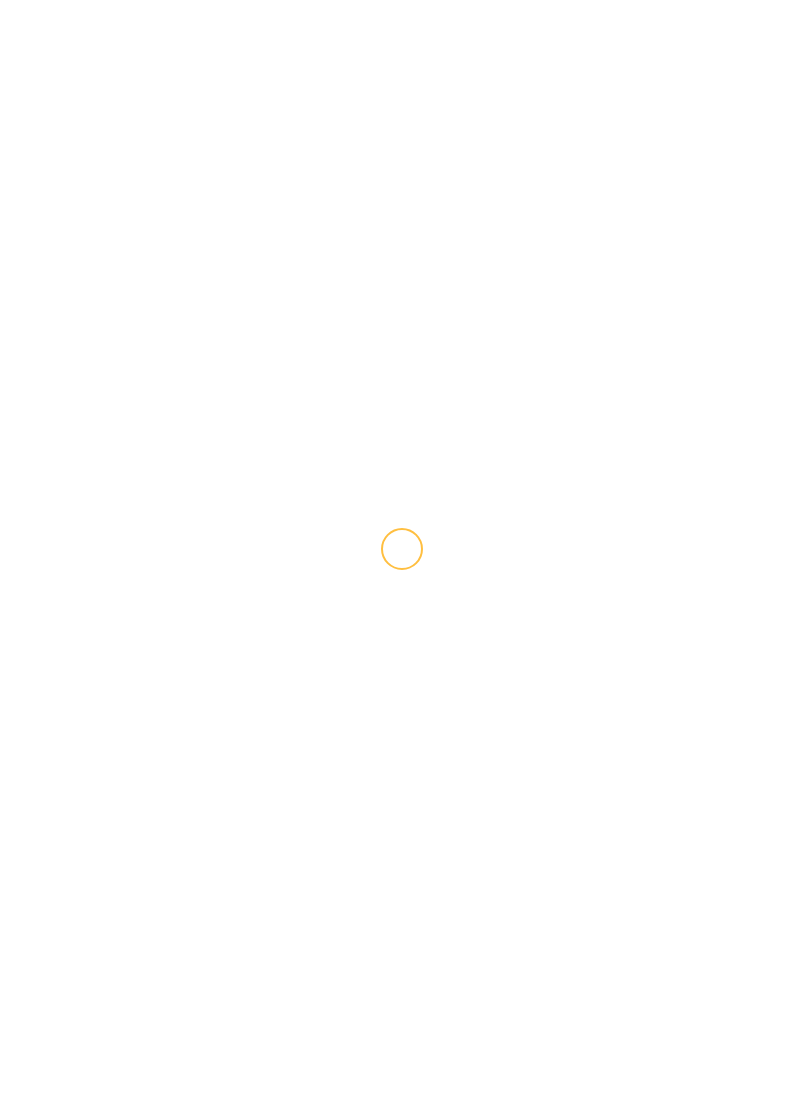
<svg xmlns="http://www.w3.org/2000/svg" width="804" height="1098">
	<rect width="100%" height="100%" fill="#FFFFFF" />
	<image x="635" y="10" width="8" height="13" href="assets/img1.png" />
	<image x="666" y="12" width="13" height="10" href="assets/img2.png" />
	<image x="701" y="11" width="12" height="12" href="assets/img3.png" />
	<image x="734" y="11" width="12" height="12" href="assets/img4.png" />
	<image x="768" y="11" width="12" height="12" href="assets/img5.png" />
	<image x="27" y="234" width="22" height="18" href="assets/img6.png" />
	<image x="768" y="238" width="13" height="13" href="assets/img7.png" />
	<image x="15" y="509" width="245" height="180" href="assets/img8.png" />
	<image x="30" y="787" width="11" height="11" href="assets/img9.png" />
	<image x="121" y="787" width="12" height="10" href="assets/img10.png" />
	<image x="280" y="509" width="244" height="180" href="assets/img11.png" />
	<image x="295" y="808" width="11" height="11" href="assets/img9.png" />
	<image x="386" y="808" width="12" height="10" href="assets/img10.png" />
	<image x="544" y="509" width="245" height="180" href="assets/img8.png" />
	<image x="559" y="808" width="11" height="11" href="assets/img9.png" />
	<image x="657" y="808" width="12" height="10" href="assets/img10.png" />
	<image x="15" y="859" width="245" height="180" href="assets/img8.png" />
	<circle cx="402" cy="549" r="20" fill="none" stroke="#FFBF40" stroke-width="2" />
</svg>
